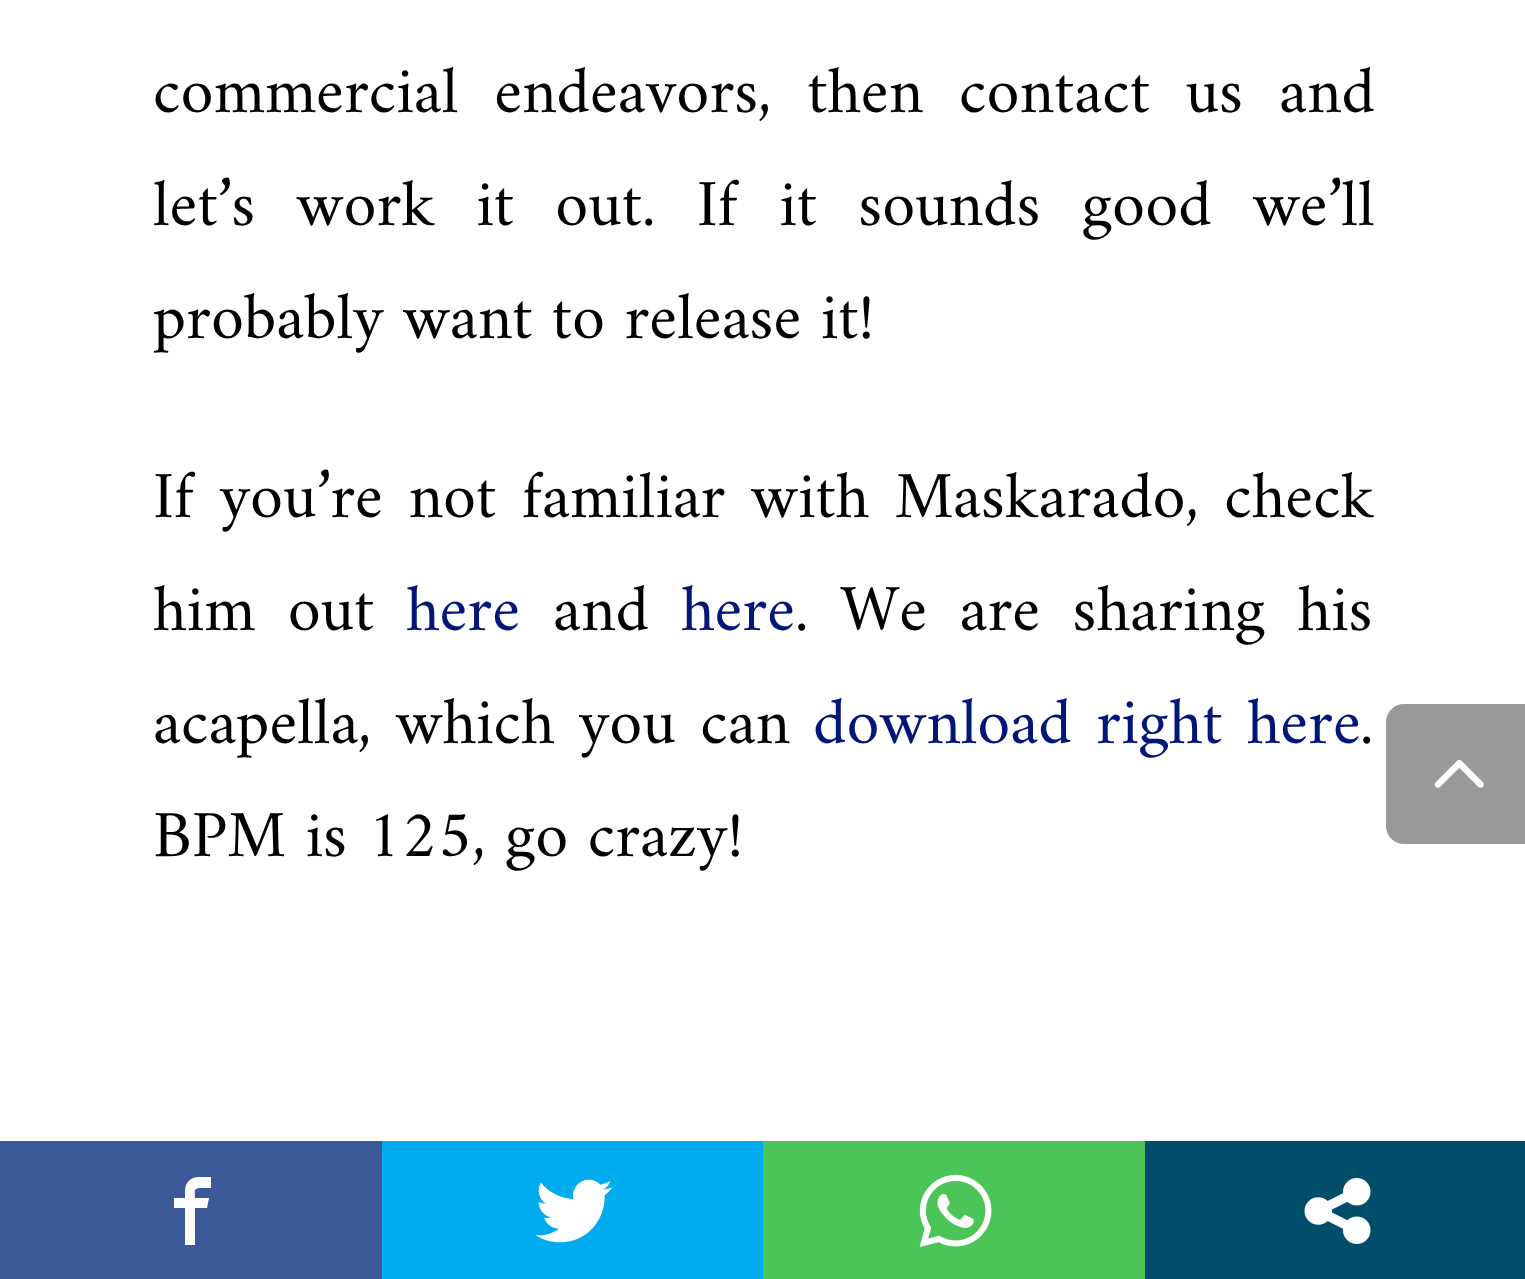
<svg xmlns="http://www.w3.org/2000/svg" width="1525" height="1279">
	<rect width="100%" height="100%" fill="#FFFFFF" />
	<g font-family="Amiri" font-size="66.5" fill="#000000">
		<text x="153" y="112" word-spacing="16.5">commercial endeavors, then contact us and</text>
		<text x="153" y="225" word-spacing="22">let’s work it out. If it sounds good we’ll</text>
		<text x="153" y="338">probably want to release it!</text>
		<text x="153" y="517" word-spacing="6.25">If you’re not familiar with Maskarado, check</text>
		<text x="153" y="630" word-spacing="13">him out</text>
	</g>
	<text x="406" y="630" font-family="Amiri" font-size="66.5" fill="#001679">here</text>
	<text x="553" y="630" font-family="Amiri" font-size="66.5" fill="#000000">and</text>
	<text x="681" y="630" font-family="Amiri" font-size="66.5" fill="#001679">here</text>
	<g font-family="Amiri" font-size="66.5" fill="#000000">
		<text x="795" y="630" word-spacing="13">. We are sharing his</text>
		<text x="153" y="743" word-spacing="5">acapella, which you can</text>
	</g>
	<text x="813" y="743" word-spacing="5" font-family="Amiri" font-size="66.5" fill="#001679">download right here</text>
	<g font-family="Amiri" font-size="66.5" fill="#000000">
		<text x="1360" y="743">.</text>
		<text x="153" y="856">BPM is 125, go crazy!</text>
	</g>
	<path d="M1404 704H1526V844H1404C1394 844 1386 836 1386 826V722C1386 712 1394 704 1404 704Z" fill="#999999" />
	<image x="1434" y="760" width="50" height="28" href="assets/img1.png" />
	<rect x="0" y="1141" width="382" height="138" fill="#3B5998" />
	<path d="M198 1177C191 1177 185 1183 185 1190V1198H174V1208H185V1245H195V1208H207L209 1198H195C195 1192 193 1188 200 1188H211V1177Z" fill="#FFFFFF" />
	<rect x="382" y="1141" width="381" height="138" fill="#00ACED" />
	<image x="536" y="1179" width="77" height="64" href="assets/img2.png" />
	<rect x="763" y="1141" width="382" height="138" fill="#4BC557" />
	<image x="919" y="1174" width="73" height="73" href="assets/img3.png" />
	<rect x="1145" y="1141" width="380" height="138" fill="#014E6B" />
	<image x="1304" y="1178" width="67" height="66" href="assets/img4.png" />
</svg>
